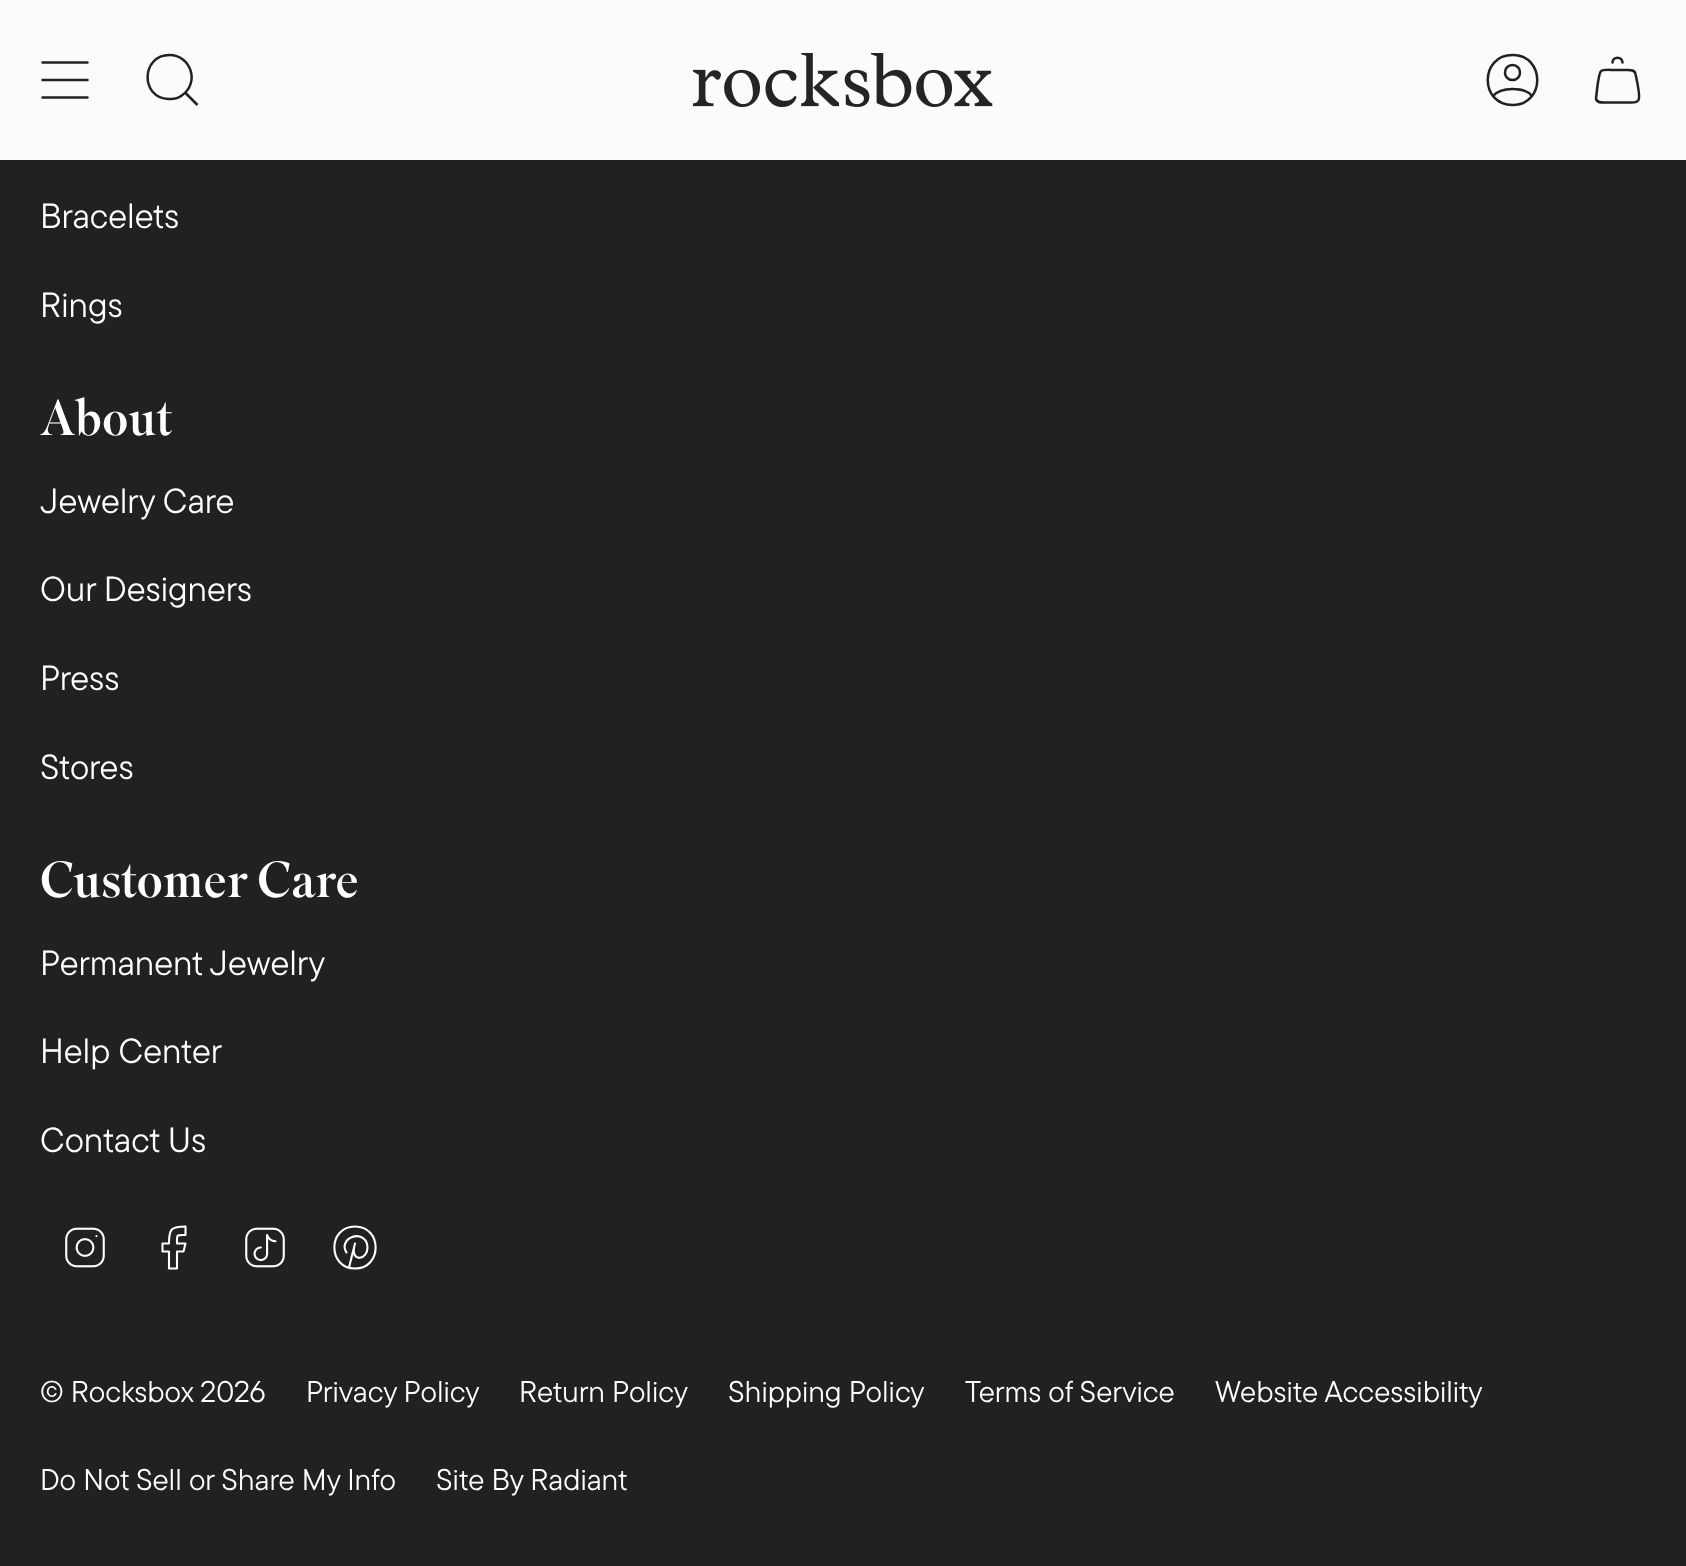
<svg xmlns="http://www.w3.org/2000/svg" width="1686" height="1566">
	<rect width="100%" height="100%" fill="#212121" />
	<rect x="0" y="0" width="1686" height="160" fill="#FCFBF9" />
	<path d="M42.5 62.5H87.5M42.5 80H87.5M42.5 97.5H87.5" fill="none" stroke="#212121" stroke-width="2.5" stroke-linecap="round" stroke-linejoin="round" />
	<path d="M169.5 55C190.5 55 200 82 182.5 95C178.5 98 173.5 99.5 168.5 99C140 98 141 55 169.5 55ZM185.5 93L197.5 105" fill="none" stroke="#212121" stroke-width="2.5" />
	<image x="693" y="53" width="300" height="54" href="assets/img1.png" />
	<path d="M1512.5 55C1479.5 55 1479.5 105 1512.5 105C1545.5 105 1545.5 55 1512.5 55ZM1493 96C1500.5 86.5 1524.5 86.5 1532 96M1512.5 80C1522.5 80 1522.5 65 1512.5 65C1502.5 65 1502.5 80 1512.5 80Z" fill="none" stroke="#212121" stroke-width="2.5" stroke-linecap="round" stroke-linejoin="round" />
	<path d="M1635.5 74C1636.5 78.5 1640.5 96.5 1638.5 100C1636.5 103.5 1632 102.5 1628.5 102.5H1606.5C1602.5 102.5 1597 103.5 1596 98.5L1597.5 85.5C1600.5 67 1598.5 70 1617.5 70H1626.5C1630 70 1635 69.5 1635.5 74ZM1622.5 62.5C1622.5 56 1612.5 56 1612.5 62.5" fill="none" stroke="#212121" stroke-width="2.5" stroke-linecap="round" stroke-linejoin="round" />
	<g font-family="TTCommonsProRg" font-size="35" fill="#FFFFFF">
		<text x="40" y="228">Bracelets</text>
		<text x="40" y="317">Rings</text>
	</g>
	<text x="40" y="435" font-family="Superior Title" font-size="50.25" fill="#FFFFFF">About</text>
	<g font-family="TTCommonsProRg" font-size="35" fill="#FFFFFF">
		<text x="40" y="513">Jewelry Care</text>
		<text x="40" y="601">Our Designers</text>
		<text x="40" y="690">Press</text>
		<text x="40" y="779">Stores</text>
	</g>
	<text x="40" y="897" font-family="Superior Title" font-size="50.25" fill="#FFFFFF">Customer Care</text>
	<g font-family="TTCommonsProRg" font-size="35" fill="#FFFFFF">
		<text x="40" y="975">Permanent Jewelry</text>
		<text x="40" y="1063">Help Center</text>
		<text x="40" y="1152">Contact Us</text>
	</g>
	<image x="65" y="1227" width="40" height="41" href="assets/img2.png" />
	<path d="M185.5 1226.5C171 1226.5 169 1229 169 1243.5H162.5V1251.5H169V1268.5H177V1251.5H183.5L185.5 1243.5H177C177 1234 176 1235 185.5 1235Z" fill="none" stroke="#FFFFFF" stroke-width="2.1" stroke-linecap="round" stroke-linejoin="round" />
	<image x="245" y="1227" width="40" height="41" href="assets/img3.png" />
	<path d="M346.5 1252.5C338.5 1240 358 1230 365.5 1240.5C367 1242.5 367.5 1245 367.5 1247.5C367.5 1260 351.5 1262.5 354 1247.5M355 1243.5L349 1267.5M355 1268.5C382.5 1268.5 382.5 1226.5 355 1226.5C327.5 1226.5 327.5 1268.5 355 1268.5Z" fill="none" stroke="#FFFFFF" stroke-width="2.1" stroke-linecap="round" stroke-linejoin="round" />
	<g font-family="TTCommonsProRg" font-size="30" fill="#FFFFFF">
		<text x="40" y="1402">© Rocksbox 2026</text>
		<text x="306" y="1402">Privacy Policy</text>
		<text x="519" y="1402">Return Policy</text>
		<text x="728" y="1402">Shipping Policy</text>
		<text x="965" y="1402">Terms of Service</text>
		<text x="1215" y="1402">Website Accessibility</text>
		<text x="40" y="1490">Do Not Sell or Share My Info</text>
		<text x="436" y="1490">Site By Radiant</text>
	</g>
</svg>
